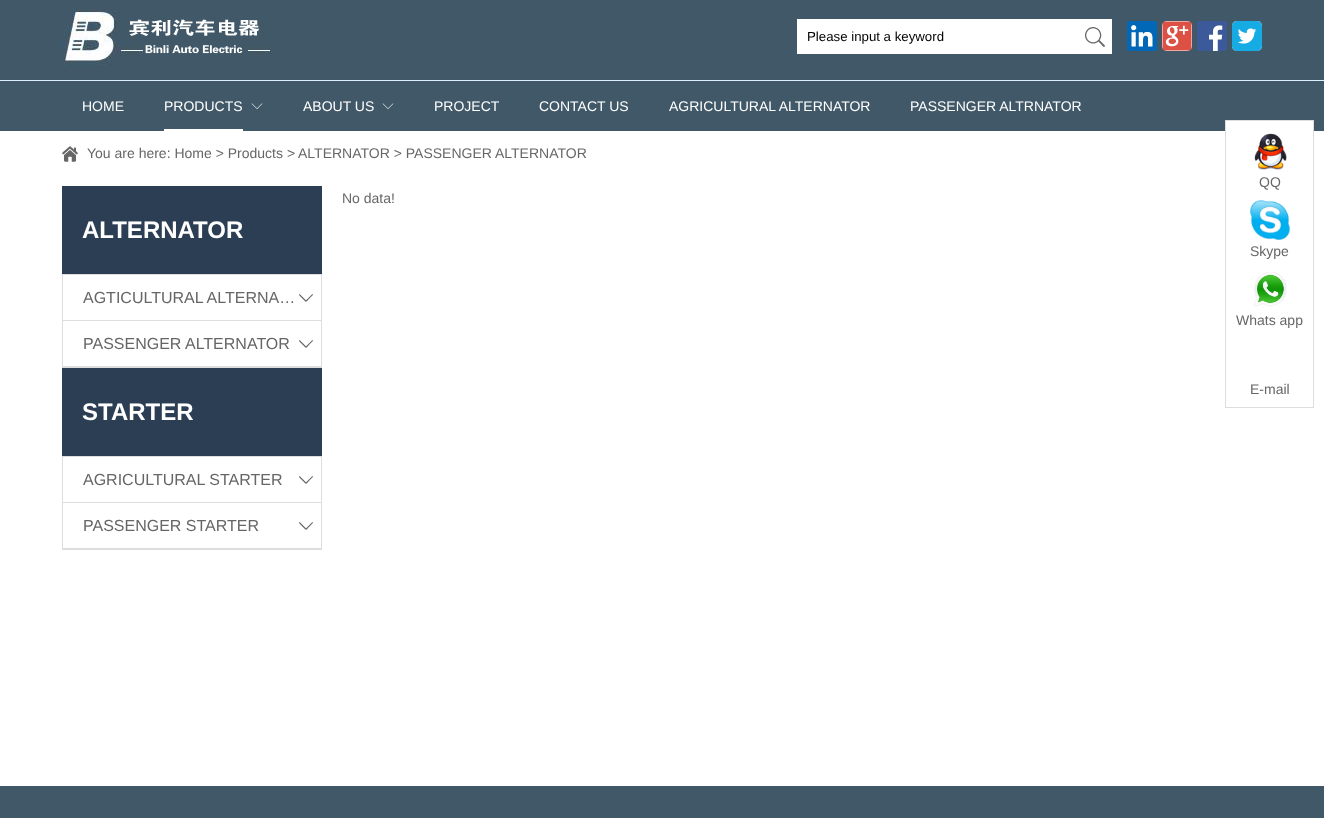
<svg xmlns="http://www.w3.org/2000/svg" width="1324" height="818">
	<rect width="100%" height="100%" fill="#FFFFFF" />
	<rect x="0" y="0" width="1324" height="131" fill="#415868" />
	<image x="62" y="10" width="210" height="55" href="assets/img1.png" />
	<rect x="797" y="19" width="315" height="35" fill="#FFFFFF" />
	<text x="807" y="41" font-family="Liberation Sans" font-size="13.25" fill="#000000">Please input a keyword</text>
	<image x="1085" y="27" width="20" height="20" href="assets/img2.png" />
	<rect x="1127" y="21" width="30" height="30" rx="5" fill="#FFFFFF" />
	<image x="1127" y="21" width="30" height="30" href="assets/img3.png" />
	<rect x="1162" y="21" width="30" height="30" rx="5" fill="#FFFFFF" />
	<image x="1162" y="21" width="30" height="30" href="assets/img4.png" />
	<image x="1197" y="21" width="30" height="30" href="assets/img5.png" />
	<rect x="1232" y="21" width="30" height="30" rx="5" fill="#FFFFFF" />
	<image x="1232" y="21" width="30" height="30" href="assets/img6.png" />
	<rect x="0" y="80" width="1324" height="1" fill="#DEF0FE" />
	<text x="82" y="111" font-family="Liberation Sans" font-size="14" fill="#FFFFFF">HOME</text>
	<image x="251" y="103" width="12" height="6" href="assets/img7.png" />
	<rect x="164" y="129" width="79" height="2" fill="#FFFFFF" />
	<text x="164" y="111" font-family="Liberation Sans" font-size="14" fill="#FFFFFF">PRODUCTS</text>
	<image x="382" y="103" width="12" height="6" href="assets/img7.png" />
	<g font-family="Liberation Sans" font-size="14" fill="#FFFFFF">
		<text x="303" y="111">ABOUT US</text>
		<text x="434" y="111">PROJECT</text>
		<text x="539" y="111">CONTACT US</text>
		<text x="669" y="111">AGRICULTURAL ALTERNATOR</text>
		<text x="910" y="111">PASSENGER ALTRNATOR</text>
	</g>
	<image x="62" y="146" width="16" height="16" href="assets/img8.png" />
	<g font-family="Liberation Sans" font-size="14" fill="#666666">
		<text x="87" y="158">You are here: Home &gt; Products</text>
		<text x="287" y="158">&gt;</text>
		<text x="298" y="158">ALTERNATOR &gt; PASSENGER ALTERNATOR</text>
		<text x="342" y="203">No data!</text>
	</g>
	<rect x="62" y="186" width="260" height="88" fill="#2C3E54" />
	<text x="82" y="238" font-family="Liberation Sans" font-size="24" font-weight="700" fill="#FFFFFF">ALTERNATOR</text>
	<rect x="62.5" y="274.5" width="259" height="93" fill="none" stroke="#DDDDDD" />
	<rect x="63" y="320" width="258" height="1" fill="#DDDDDD" />
	<text x="83" y="303" font-family="Liberation Sans" font-size="16" fill="#666666">AGTICULTURAL ALTERNA…</text>
	<image x="299" y="294" width="14" height="8" href="assets/img9.png" />
	<rect x="63" y="366" width="258" height="1" fill="#DDDDDD" />
	<text x="83" y="349" font-family="Liberation Sans" font-size="16" fill="#666666">PASSENGER ALTERNATOR</text>
	<image x="299" y="340" width="14" height="8" href="assets/img9.png" />
	<rect x="62" y="368" width="260" height="88" fill="#2C3E54" />
	<text x="82" y="420" font-family="Liberation Sans" font-size="24" font-weight="700" fill="#FFFFFF">STARTER</text>
	<rect x="62.5" y="456.5" width="259" height="93" fill="none" stroke="#DDDDDD" />
	<rect x="63" y="502" width="258" height="1" fill="#DDDDDD" />
	<text x="83" y="485" font-family="Liberation Sans" font-size="16" fill="#666666">AGRICULTURAL STARTER</text>
	<image x="299" y="476" width="14" height="8" href="assets/img9.png" />
	<rect x="63" y="548" width="258" height="1" fill="#DDDDDD" />
	<text x="83" y="531" font-family="Liberation Sans" font-size="16" fill="#666666">PASSENGER STARTER</text>
	<image x="299" y="522" width="14" height="8" href="assets/img9.png" />
	<rect x="1226" y="121" width="87" height="10" fill="#FFFFFF" />
	<rect x="1225.5" y="120.5" width="88" height="287" fill="none" stroke="#DDDDDD" />
	<image x="1254" y="133" width="33" height="37" href="assets/img10.png" />
	<text x="1259" y="187" font-family="Liberation Sans" font-size="14" fill="#666666">QQ</text>
	<image x="1250" y="200" width="40" height="40" href="assets/img11.png" />
	<text x="1250" y="256" font-family="Liberation Sans" font-size="14" fill="#666666">Skype</text>
	<image x="1254" y="272" width="33" height="35" href="assets/img12.png" />
	<g font-family="Liberation Sans" font-size="14" fill="#666666">
		<text x="1236" y="325">Whats app</text>
		<text x="1250" y="394">E-mail</text>
	</g>
	<rect x="0" y="786" width="1324" height="32" fill="#415868" />
</svg>
